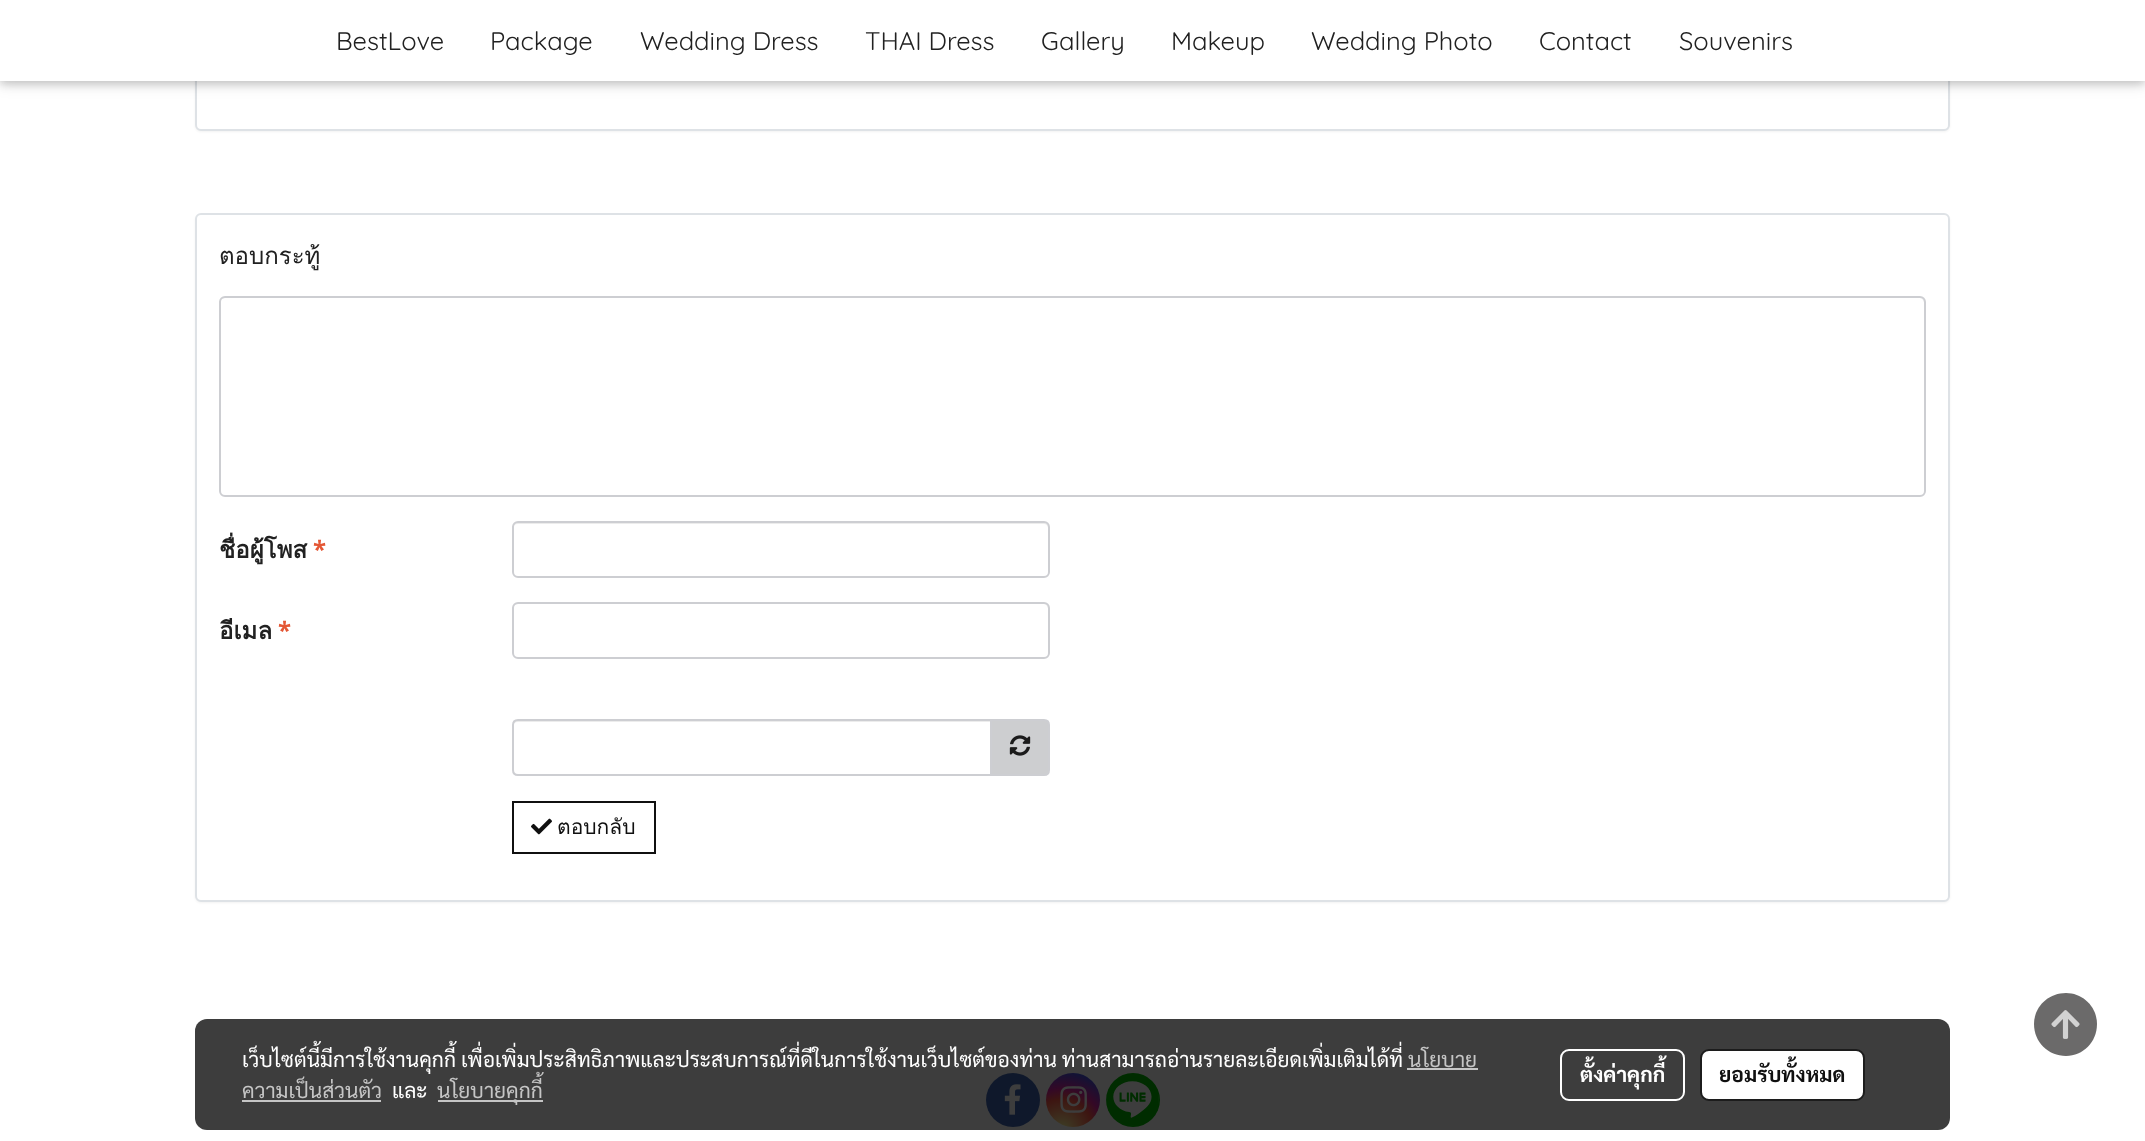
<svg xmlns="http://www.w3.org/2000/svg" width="2145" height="1141">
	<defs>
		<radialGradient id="g1" gradientUnits="userSpaceOnUse" cx="1062" cy="1130" r="69"><stop offset="0" stop-color="#FDF497" /><stop offset="0.05" stop-color="#FDF497" /><stop offset="0.45" stop-color="#FD5949" /><stop offset="0.6" stop-color="#D6249F" /><stop offset="0.9" stop-color="#285AEB" /></radialGradient>
	</defs>
	<rect width="100%" height="100%" fill="#FFFFFF" />
	<rect x="195" y="-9" width="1755" height="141" rx="6" fill="#000000" fill-opacity="0.05" filter="blur(1px)" />
	<rect x="196" y="-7" width="1753" height="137" rx="5" fill="#FFFFFF" stroke="#DEE2E6" stroke-width="2" />
	<rect x="0" y="3" width="2145" height="81" fill="#000000" fill-opacity="0.12" filter="blur(7.5px)" />
	<rect x="0" y="3" width="2145" height="81" fill="#000000" fill-opacity="0.16" filter="blur(4px)" />
	<rect x="0" y="0" width="2145" height="81" fill="#FFFFFF" />
	<g font-family="Quicksand" font-size="25.5" font-weight="300" fill="#212121">
		<text x="336" y="50">BestLove</text>
		<text x="490" y="50">Package</text>
		<text x="640" y="50">Wedding Dress</text>
		<text x="865" y="50">THAI Dress</text>
		<text x="1041" y="50">Gallery</text>
		<text x="1171" y="50">Makeup</text>
		<text x="1311" y="50">Wedding Photo</text>
		<text x="1539" y="50">Contact</text>
		<text x="1679" y="50">Souvenirs</text>
	</g>
	<rect x="195" y="215" width="1755" height="688" rx="6" fill="#000000" fill-opacity="0.05" filter="blur(1px)" />
	<rect x="196" y="214" width="1753" height="687" rx="5" fill="#FFFFFF" stroke="#DEE2E6" stroke-width="2" />
	<text x="219" y="264" font-family="Loma" font-size="24" fill="#212121">ตอบกระทู้</text>
	<path d="M225 298H1920C1922 298 1924 301 1924 303V493C1925 492 1925 491 1925 490V302C1925 299 1923 297 1920 297H226C224 297 222 298 221 300C222 299 224 298 225 298Z" fill="#ECECEC" />
	<rect x="220" y="297" width="1705" height="199" rx="5" fill="none" stroke="#CDCED2" stroke-width="2" />
	<text x="219" y="558" font-family="Loma" font-size="24" font-weight="700" fill="#212121">ชื่อผู้โพส</text>
	<text x="313" y="558" font-family="Open Sans" font-size="24" font-weight="700" fill="#E45735">*</text>
	<path d="M518 524H1044C1046 524 1048 526 1048 528V574C1049 573 1049 572 1049 571V527C1049 524 1047 522 1044 522H518C515 522 513 524 513 527V528C513 526 515 524 518 524Z" fill="#ECECEC" />
	<rect x="513" y="522" width="536" height="55" rx="5" fill="none" stroke="#CDCED2" stroke-width="2" />
	<text x="219" y="639" font-family="Loma" font-size="24" font-weight="700" fill="#212121">อีเมล</text>
	<text x="278" y="639" font-family="Open Sans" font-size="24" font-weight="700" fill="#E45735">*</text>
	<path d="M518 604H1044C1046 604 1048 607 1048 609V655C1049 654 1049 653 1049 652V608C1049 605 1047 603 1044 603H518C515 603 513 605 513 608V609C513 607 515 604 518 604Z" fill="#ECECEC" />
	<rect x="513" y="603" width="536" height="55" rx="5" fill="none" stroke="#CDCED2" stroke-width="2" />
	<path d="M518 722H990V720H518C515 720 513 722 513 725V726C513 724 515 722 518 722Z" fill="#ECECEC" />
	<path d="M518 720H991V775H518C515 775 513 773 513 770V725C513 722 515 720 518 720Z" fill="none" stroke="#CDCED2" stroke-width="2" />
	<path d="M991 720H1044C1047 720 1049 722 1049 725V770C1049 773 1047 775 1044 775H991Z" fill="#CDCED0" stroke="#CDCED2" stroke-width="2" />
	<image x="1009" y="735" width="22" height="21" href="assets/img1.png" />
	<rect x="513" y="802" width="142" height="51" fill="none" stroke="#101010" stroke-width="2" />
	<image x="531" y="818" width="21" height="17" href="assets/img2.png" />
	<text x="557" y="834" font-family="Loma" font-size="21" fill="#101010">ตอบกลับ</text>
	<circle cx="1013" cy="1100" r="27" fill="#4267B2" />
	<image x="1004" y="1084" width="17" height="31" href="assets/img3.png" />
	<circle cx="1073" cy="1100" r="27" fill="url(#g1)" />
	<image x="1060" y="1086" width="27" height="27" href="assets/img4.png" />
	<circle cx="1133" cy="1100" r="27" fill="#00B800" />
	<image x="1106" y="1081" width="53" height="45" href="assets/img5.png" />
	<path d="M2066 993C2048 993 2034 1007 2034 1024C2034 1042 2048 1056 2066 1056C2083 1056 2097 1042 2097 1024C2097 1007 2083 993 2066 993Z" fill="#6B6A6A" />
	<image x="2051" y="1010" width="29" height="29" href="assets/img6.png" />
	<rect x="195" y="1019" width="1755" height="111" rx="12" fill="#000000" fill-opacity="0.76" />
	<text x="242" y="1067" font-family="Sarabun" font-size="21" fill="#FFFFFF">เว็บไซต์นี้มีการใช้งานคุกกี้ เพื่อเพิ่มประสิทธิภาพและประสบการณ์ที่ดีในการใช้งานเว็บไซต์ของท่าน ท่านสามารถอ่านรายละเอียดเพิ่มเติมได้ที่</text>
	<text x="1408" y="1067" font-family="Sarabun" font-size="21" fill="#C5C5C5">นโยบาย</text>
	<rect x="1407" y="1068" width="71" height="2" fill="#C5C5C5" />
	<text x="242" y="1098" font-family="Sarabun" font-size="21" fill="#C5C5C5">ความเป็นส่วนตัว</text>
	<rect x="242" y="1100" width="139" height="2" fill="#C5C5C5" />
	<text x="392" y="1098" font-family="Sarabun" font-size="21" fill="#FFFFFF">และ</text>
	<rect x="438" y="1100" width="105" height="2" fill="#C5C5C5" />
	<text x="437" y="1098" font-family="Sarabun" font-size="21" fill="#C5C5C5">นโยบายคุกกี้</text>
	<rect x="1561" y="1050" width="123" height="50" rx="8" fill="none" stroke="#FFFFFF" stroke-width="2" />
	<text x="1580" y="1082" font-family="Sarabun" font-size="21" font-weight="700" fill="#FFFFFF">ตั้งค่าคุกกี้</text>
	<rect x="1701" y="1050" width="163" height="50" rx="8" fill="#FFFFFF" stroke="#1C1C1C" stroke-width="2" />
	<text x="1719" y="1082" font-family="Sarabun" font-size="21" font-weight="700" fill="#101010">ยอมรับทั้งหมด</text>
</svg>
